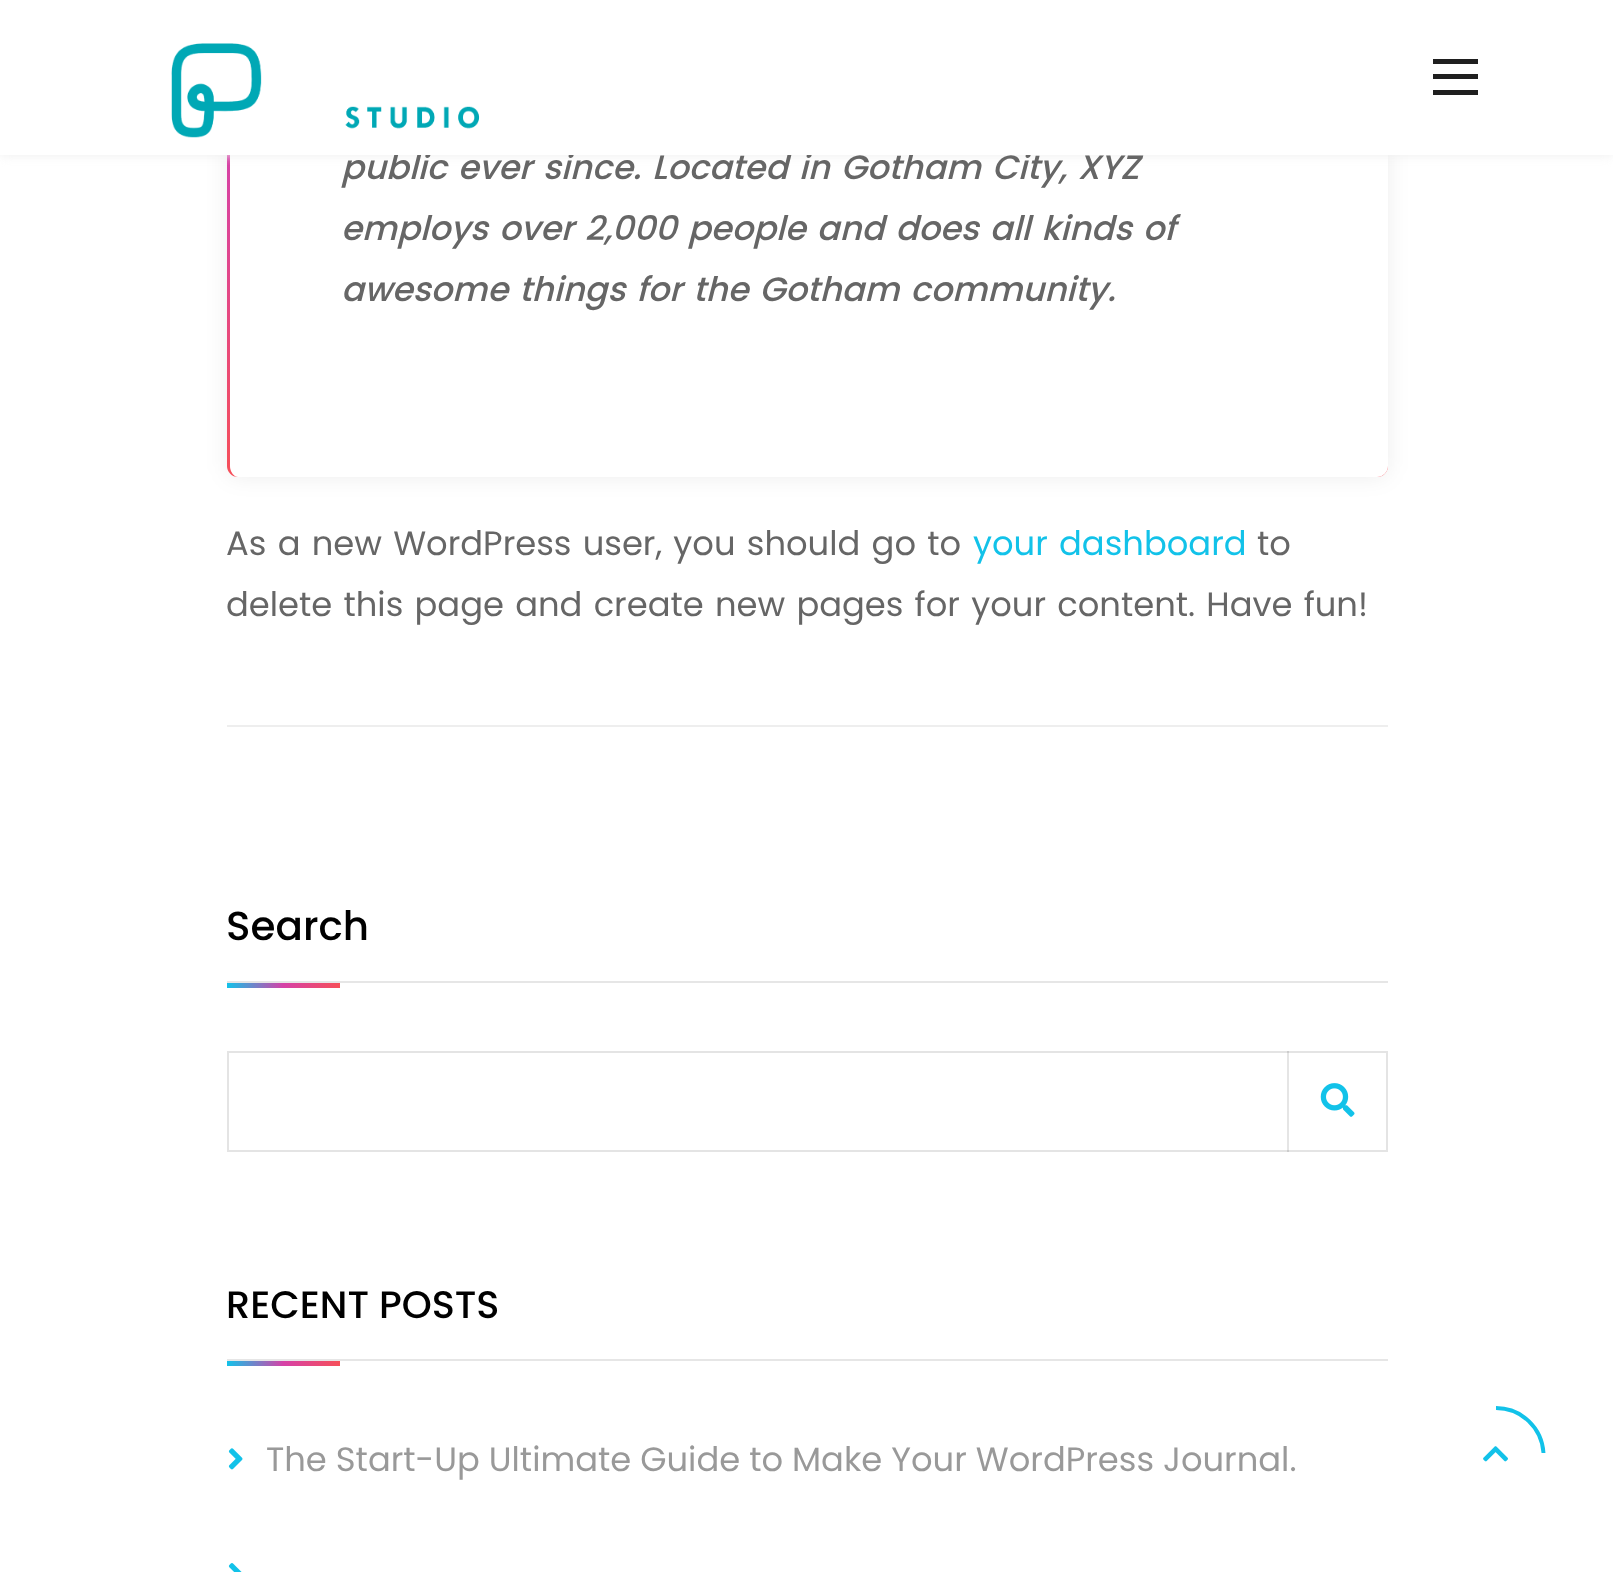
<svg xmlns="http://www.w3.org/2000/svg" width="1613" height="1572">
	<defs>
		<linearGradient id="g1" gradientUnits="userSpaceOnUse" x1="808" y1="-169" x2="808" y2="477"><stop offset="0" stop-color="#12C2E9" /><stop offset="0.5" stop-color="#D641A7" /><stop offset="1" stop-color="#F64F59" /></linearGradient>
		<linearGradient id="g2" gradientUnits="userSpaceOnUse" x1="227" y1="986" x2="340" y2="986"><stop offset="0" stop-color="#12C2E9" /><stop offset="0.5" stop-color="#D641A7" /><stop offset="1" stop-color="#F64F59" /></linearGradient>
		<linearGradient id="g3" gradientUnits="userSpaceOnUse" x1="227" y1="1364" x2="340" y2="1364"><stop offset="0" stop-color="#12C2E9" /><stop offset="0.5" stop-color="#D641A7" /><stop offset="1" stop-color="#F64F59" /></linearGradient>
	</defs>
	<rect width="100%" height="100%" fill="#FFFFFF" />
	<rect x="227" y="-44" width="1161" height="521" rx="11" fill="#000000" fill-opacity="0.07" filter="blur(11px)" />
	<rect x="227" y="-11" width="1161" height="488" rx="11" fill="url(#g1)" />
	<path d="M238-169H1377C1383-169 1388-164 1388-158V466C1388 472 1383 477 1377 477H238C234 477 230 472 230 466V-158C230-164 234-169 238-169Z" fill="#FFFFFF" />
	<rect x="0" y="0" width="1613" height="155" fill="#EEEEEE" filter="blur(5.5px)" />
	<text x="341" y="179" word-spacing="2.25" font-family="Poppins" font-size="33.75" font-weight="500" font-style="italic" fill="#666666">public ever since. Located in Gotham City, XYZ</text>
	<rect x="0" y="0" width="1613" height="155" fill="#FFFFFF" />
	<image x="171" y="43" width="309" height="95" href="assets/img1.png" />
	<rect x="1433" y="74" width="45" height="5" fill="#1F1F1F" />
	<rect x="1433" y="59" width="45" height="5" fill="#1F1F1F" />
	<rect x="1433" y="90" width="45" height="5" fill="#1F1F1F" />
	<g font-family="Poppins" font-size="33.75" font-weight="500" font-style="italic" fill="#666666">
		<text x="341" y="240" word-spacing="2.25">employs over 2,000 people and does all kinds of</text>
		<text x="341" y="301" word-spacing="2.25">awesome things for the Gotham community.</text>
	</g>
	<text x="226" y="555" word-spacing="2.25" font-family="Poppins" font-size="33.75" fill="#666666">As a new WordPress user, you should go to</text>
	<text x="973" y="555" word-spacing="2.25" font-family="Poppins" font-size="33.75" fill="#12C2E9">your dashboard</text>
	<g font-family="Poppins" font-size="33.75" fill="#666666">
		<text x="1257" y="555">to</text>
		<text x="226" y="616" word-spacing="2.25">delete this page and create new pages for your content. Have fun!</text>
	</g>
	<rect x="227" y="725" width="1161" height="2" fill="#EEEEEE" />
	<rect x="227" y="981" width="1161" height="2" fill="#E6E6E6" />
	<text x="226" y="940" font-family="Poppins" font-size="40.5" font-weight="500" fill="#000000">Search</text>
	<rect x="227" y="983" width="113" height="5" fill="url(#g2)" />
	<rect x="228" y="1052" width="1159" height="99" fill="none" stroke="#E4E4E4" stroke-width="2" />
	<rect x="1287" y="1051" width="2" height="101" fill="#000000" fill-opacity="0.1" />
	<image x="1320" y="1083" width="35" height="34" href="assets/img2.png" />
	<rect x="227" y="1359" width="1161" height="2" fill="#E6E6E6" />
	<text x="226" y="1318" font-family="Poppins" font-size="38.25" font-weight="500" fill="#000000">RECENT POSTS</text>
	<rect x="227" y="1361" width="113" height="5" fill="url(#g3)" />
	<image x="228" y="1448" width="15" height="22" href="assets/img3.png" />
	<text x="266" y="1471" font-family="Poppins" font-size="33.75" fill="#999999">The Start-Up Ultimate Guide to Make Your WordPress Journal.</text>
	<image x="228" y="1563" width="14" height="9" href="assets/img4.png" />
	<path d="M1496 1408C1521.5 1408 1542 1428 1543.5 1453" fill="none" stroke="#12C2E9" stroke-width="3.9" />
	<image x="1483" y="1446" width="25" height="16" href="assets/img5.png" />
</svg>
